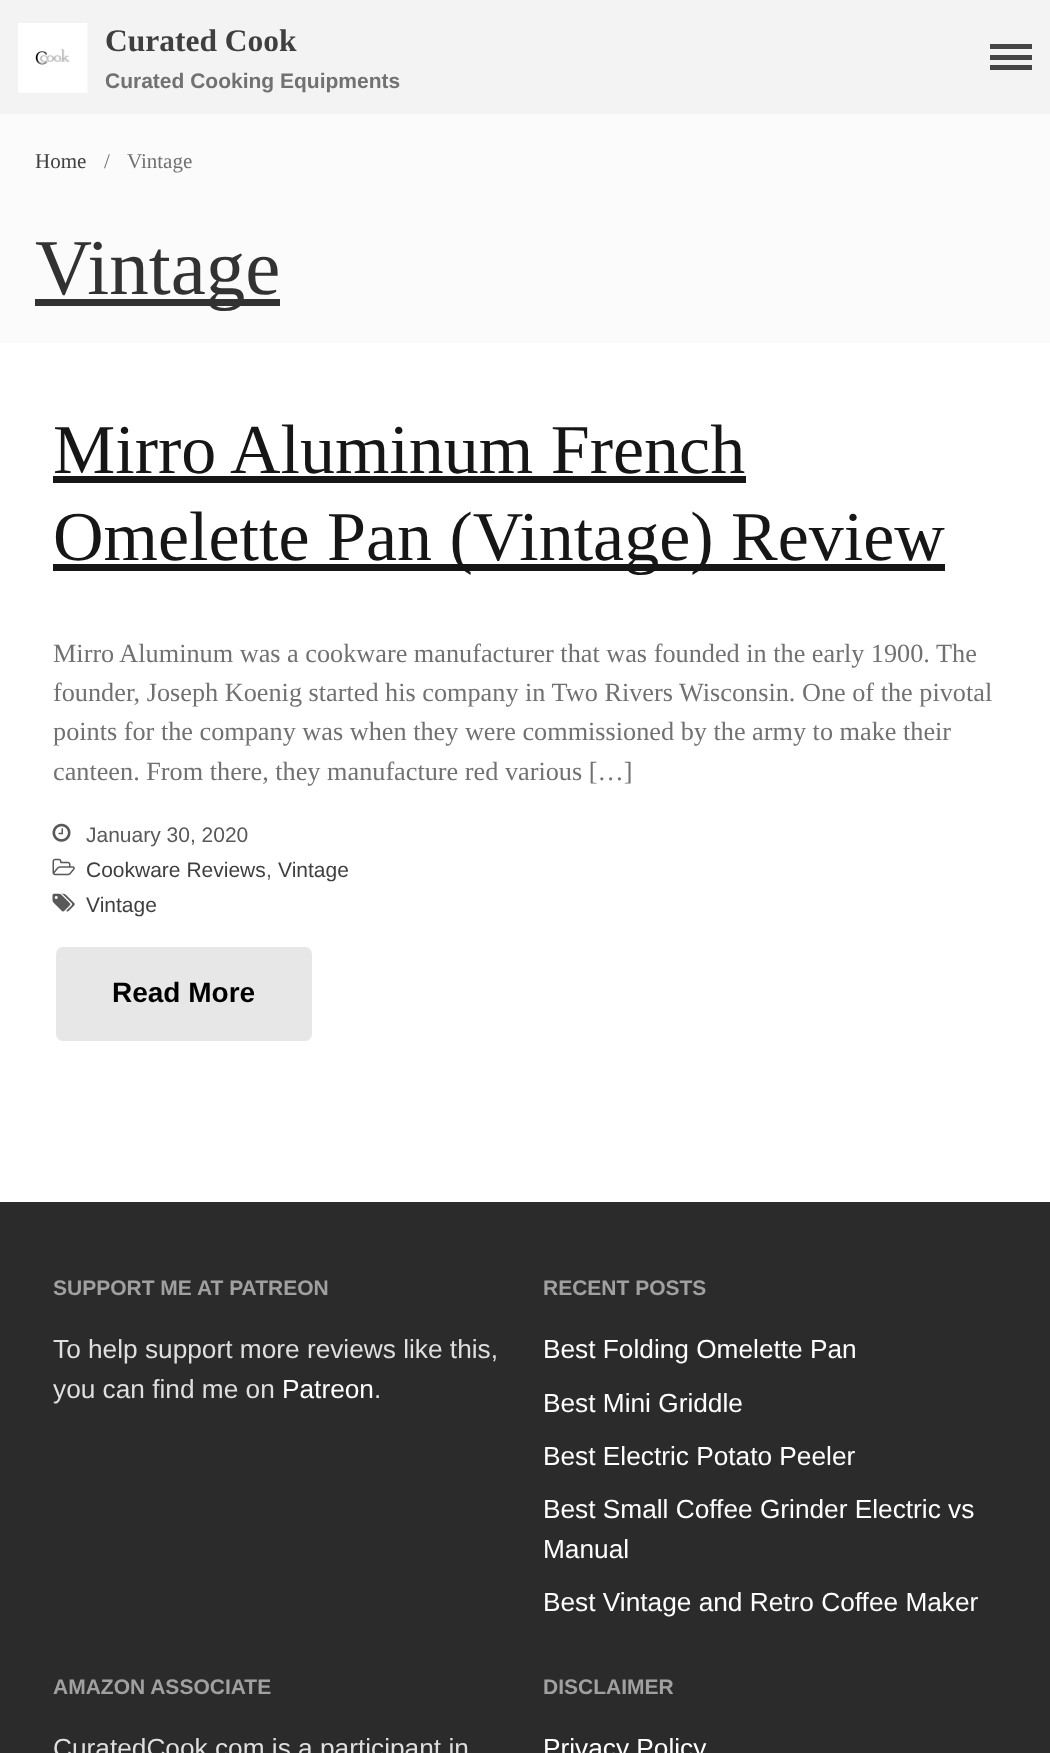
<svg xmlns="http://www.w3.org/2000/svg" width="1050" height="1753">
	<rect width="100%" height="100%" fill="#FFFFFF" />
	<rect x="0" y="0" width="1050" height="114" fill="#F3F3F3" />
	<image x="18" y="23" width="70" height="70" href="assets/img1.png" />
	<text x="105" y="51" font-family="Liberation Serif" font-size="31.5" font-weight="700" fill="#3F3F3F">Curated Cook</text>
	<text x="105" y="88" font-family="Liberation Sans" font-size="21" font-weight="700" fill="#717171">Curated Cooking Equipments</text>
	<path d="M990 44V49H1032V44ZM990 55V60H1032V55ZM990 65V70H1032V65Z" fill="#454545" />
	<rect x="0" y="114" width="1050" height="229" fill="#FBFBFB" />
	<text x="35" y="168" font-family="Liberation Serif" font-size="21" fill="#3F3F3F">Home</text>
	<g font-family="Liberation Serif" font-size="21" fill="#717171">
		<text x="104" y="168">/</text>
		<text x="127" y="168">Vintage</text>
	</g>
	<rect x="35" y="299" width="245" height="7" fill="#323232" />
	<text x="35" y="294" font-family="Liberation Serif" font-size="79" fill="#323232">Vintage</text>
	<text x="53" y="473" font-family="Liberation Serif" font-size="70" fill="#161616">Mirro Aluminum French</text>
	<rect x="53" y="476" width="693" height="7" fill="#161616" />
	<rect x="53" y="564" width="892" height="7" fill="#161616" />
	<text x="53" y="560" font-family="Liberation Serif" font-size="70" fill="#161616">Omelette Pan (Vintage) Review</text>
	<g font-family="Liberation Serif" font-size="26.25" fill="#717171">
		<text x="53" y="662">Mirro Aluminum was a cookware manufacturer that was founded in the early 1900. The</text>
		<text x="53" y="701">founder, Joseph Koenig started his company in Two Rivers Wisconsin. One of the pivotal</text>
		<text x="53" y="740">points for the company was when they were commissioned by the army to make their</text>
		<text x="53" y="780">canteen. From there, they manufacture red various […]</text>
	</g>
	<image x="52" y="823" width="19" height="19" href="assets/img2.png" />
	<text x="86" y="842" font-family="Liberation Sans" font-size="21" fill="#595959">January 30, 2020</text>
	<image x="52" y="858" width="23" height="18" href="assets/img3.png" />
	<text x="86" y="877" font-family="Liberation Sans" font-size="21" fill="#3F3F3F">Cookware Reviews</text>
	<text x="266" y="877" font-family="Liberation Sans" font-size="21" fill="#595959">,</text>
	<text x="278" y="877" font-family="Liberation Sans" font-size="21" fill="#3F3F3F">Vintage</text>
	<image x="52" y="893" width="23" height="19" href="assets/img4.png" />
	<text x="86" y="912" font-family="Liberation Sans" font-size="21" fill="#3F3F3F">Vintage</text>
	<rect x="56" y="947" width="256" height="94" rx="7" fill="#E7E7E7" />
	<text x="112" y="1002" font-family="Liberation Sans" font-size="28" font-weight="700" fill="#000000">Read More</text>
	<rect x="0" y="1202" width="1050" height="551" fill="#2B2B2B" />
	<text x="53" y="1295" font-family="Liberation Sans" font-size="21" font-weight="700" fill="#A0A0A0">SUPPORT ME AT PATREON</text>
	<g font-family="Liberation Sans" font-size="26.25" fill="#DFDFDF">
		<text x="53" y="1358">To help support more reviews like this,</text>
		<text x="53" y="1398">you can find me on</text>
	</g>
	<text x="282" y="1398" font-family="Liberation Sans" font-size="26.25" fill="#FFFFFF">Patreon</text>
	<text x="374" y="1398" font-family="Liberation Sans" font-size="26.25" fill="#DFDFDF">.</text>
	<text x="543" y="1295" font-family="Liberation Sans" font-size="21" font-weight="700" fill="#A0A0A0">RECENT POSTS</text>
	<g font-family="Liberation Sans" font-size="26.25" fill="#FFFFFF">
		<text x="543" y="1358">Best Folding Omelette Pan</text>
		<text x="543" y="1412">Best Mini Griddle</text>
		<text x="543" y="1465">Best Electric Potato Peeler</text>
		<text x="543" y="1518">Best Small Coffee Grinder Electric vs</text>
		<text x="543" y="1558">Manual</text>
		<text x="543" y="1611">Best Vintage and Retro Coffee Maker</text>
	</g>
	<text x="53" y="1694" font-family="Liberation Sans" font-size="21" font-weight="700" fill="#A0A0A0">AMAZON ASSOCIATE</text>
	<text x="53" y="1757" font-family="Liberation Sans" font-size="26.25" fill="#DFDFDF">CuratedCook.com is a participant in</text>
	<text x="543" y="1694" font-family="Liberation Sans" font-size="21" font-weight="700" fill="#A0A0A0">DISCLAIMER</text>
	<text x="543" y="1757" font-family="Liberation Sans" font-size="26.25" fill="#FFFFFF">Privacy Policy</text>
</svg>
